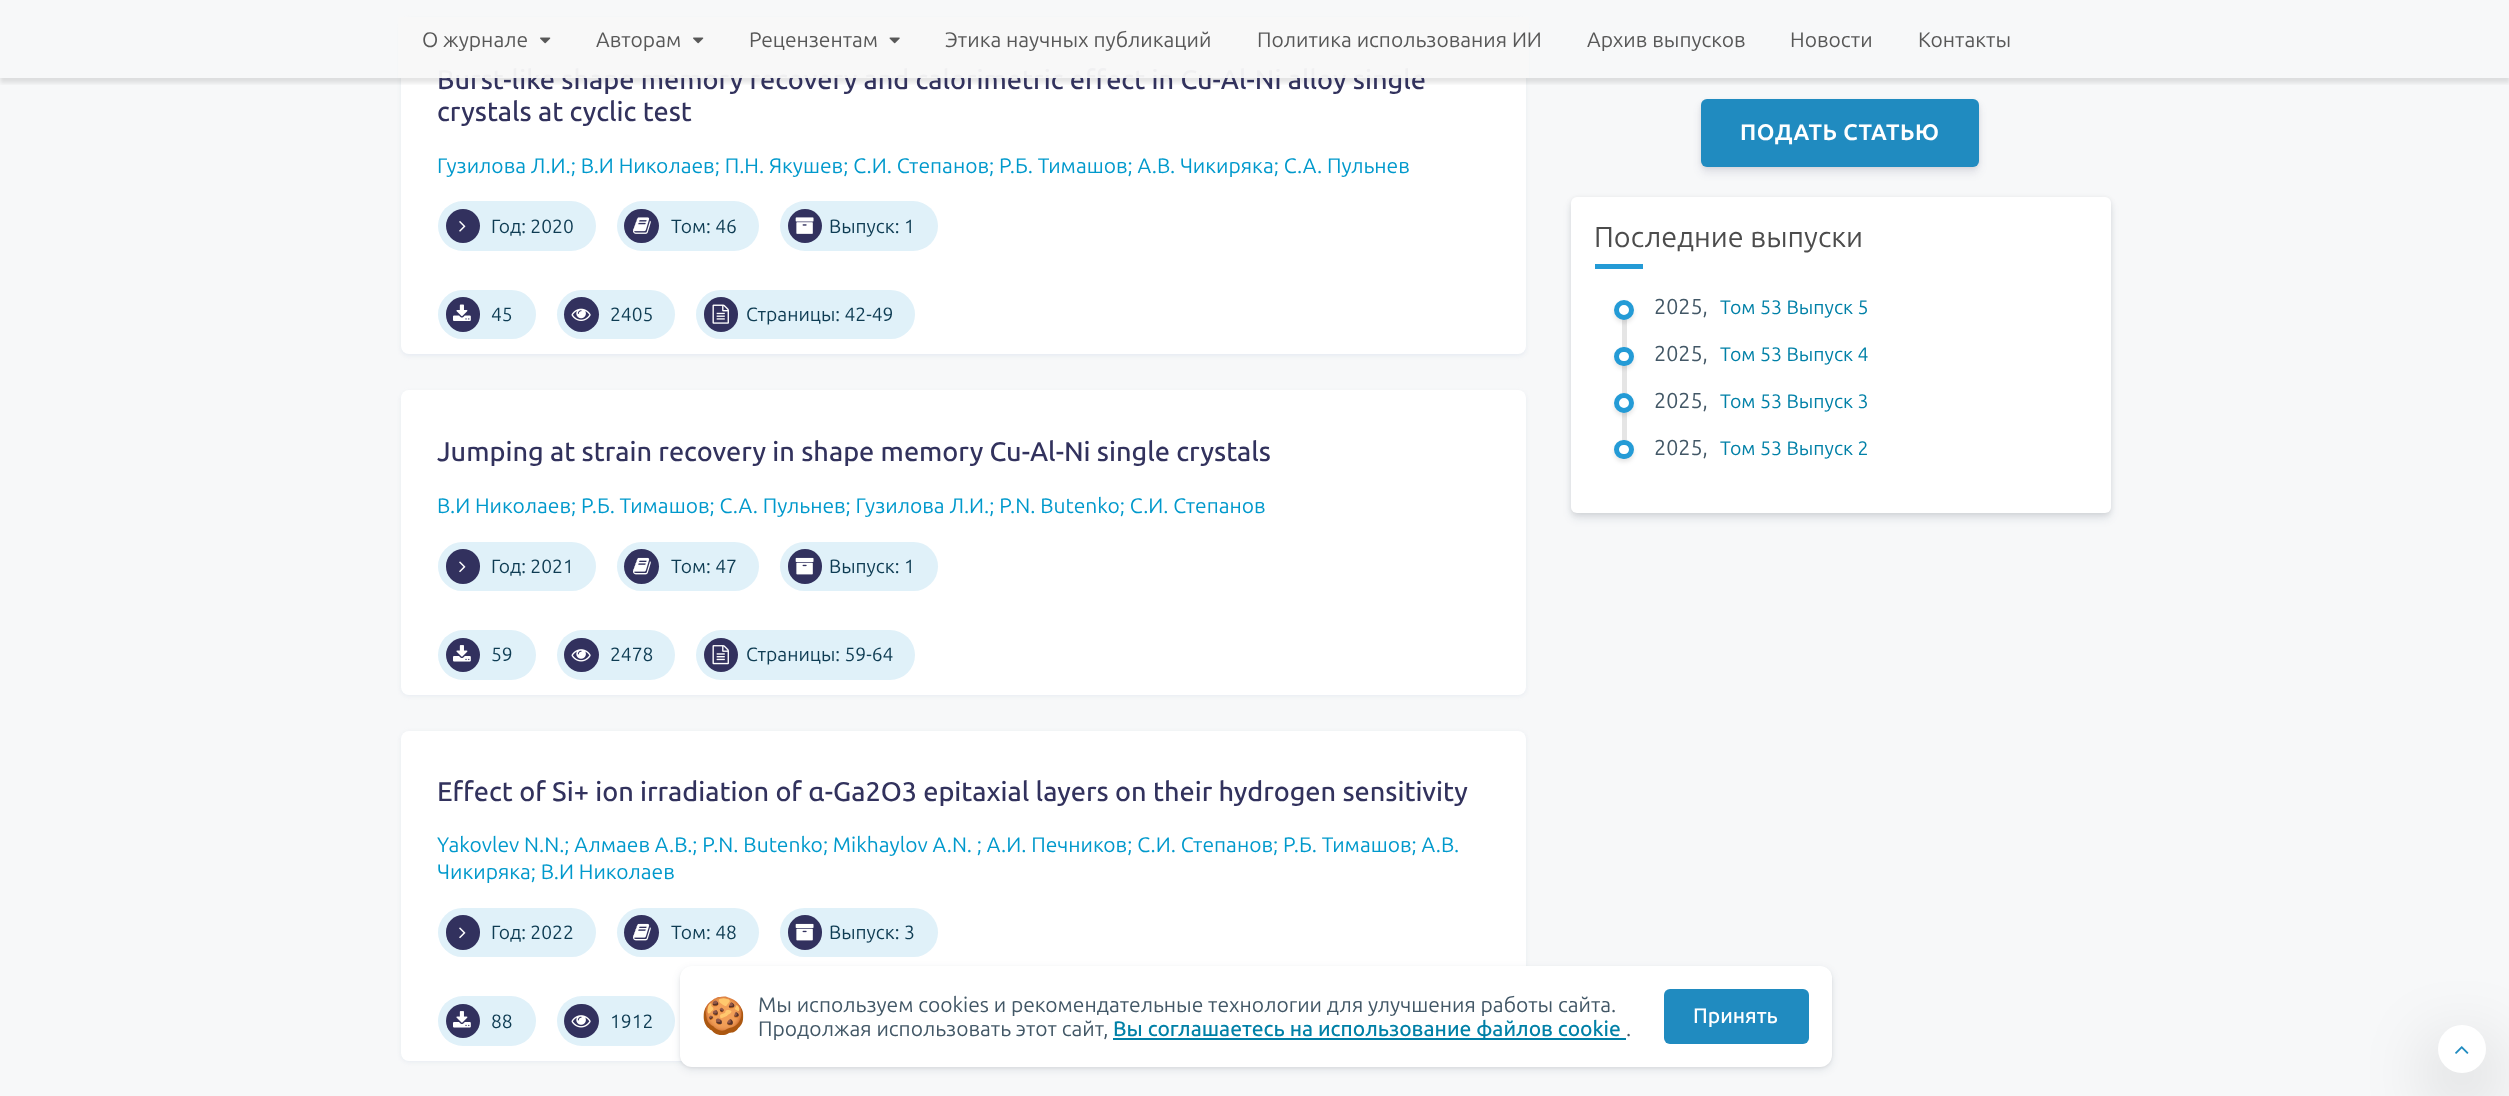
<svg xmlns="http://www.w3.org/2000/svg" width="2509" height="1096">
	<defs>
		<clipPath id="clip1"><rect x="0" y="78" width="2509" height="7" /></clipPath>
	</defs>
	<rect width="100%" height="100%" fill="#F7F8F9" />
	<rect x="401" y="20" width="1125" height="336" rx="8" fill="#E6EBF1" filter="blur(2px)" />
	<rect x="401" y="18" width="1125" height="336" rx="8" fill="#FFFFFF" />
	<g clip-path="url(#clip1)">
		<rect x="0" y="5" width="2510" height="78" fill="#000000" fill-opacity="0.1" filter="blur(2px)" />
	</g>
	<text x="437" y="89" font-family="Ubuntu" font-size="27" font-weight="500" fill="#32325D">Burst-like shape memory recovery and calorimetric effect in Cu-Al-Ni alloy single</text>
	<rect x="398" y="17" width="1131" height="61" fill="#F8F8F8" fill-opacity="0.96" />
	<text x="422" y="47" font-family="Ubuntu" font-size="21" fill="#585858">О журнале</text>
	<image x="540" y="37" width="11" height="7" href="assets/img1.png" />
	<text x="596" y="47" font-family="Ubuntu" font-size="21" fill="#585858">Авторам</text>
	<image x="693" y="37" width="11" height="7" href="assets/img1.png" />
	<text x="749" y="47" font-family="Ubuntu" font-size="21" fill="#585858">Рецензентам</text>
	<image x="889" y="37" width="11" height="7" href="assets/img2.png" />
	<g font-family="Ubuntu" font-size="21" fill="#585858">
		<text x="945" y="47">Этика научных публикаций</text>
		<text x="1257" y="47">Политика использования ИИ</text>
		<text x="1587" y="47">Архив выпусков</text>
		<text x="1790" y="47">Новости</text>
		<text x="1918" y="47">Контакты</text>
	</g>
	<text x="437" y="121" font-family="Ubuntu" font-size="27" font-weight="500" fill="#32325D">crystals at cyclic test</text>
	<text x="437" y="173" font-family="Ubuntu" font-size="21" fill="#0099CC">Гузилова Л.И.; В.И Николаев; П.Н. Якушев; С.И. Степанов; Р.Б. Тимашов; А.В. Чикиряка; С.А. Пульнев</text>
	<rect x="438" y="201" width="158" height="50" rx="25" fill="#E0F1F9" />
	<circle cx="463" cy="226" r="17" fill="#32315E" />
	<image x="459" y="221" width="7" height="11" href="assets/img3.png" />
	<text x="491" y="233" font-family="Ubuntu" font-size="19.25" fill="#0E3C53">Год: 2020</text>
	<rect x="617" y="201" width="142" height="50" rx="25" fill="#E0F1F9" />
	<rect x="624" y="209" width="35" height="34" rx="17" fill="#32315E" />
	<image x="633" y="217" width="18" height="17" href="assets/img4.png" />
	<text x="671" y="233" font-family="Ubuntu" font-size="19.25" fill="#0E3C53">Том: 46</text>
	<rect x="780" y="201" width="158" height="50" rx="25" fill="#E0F1F9" />
	<circle cx="805" cy="226" r="17" fill="#32315E" />
	<image x="795" y="217" width="19" height="17" href="assets/img5.png" />
	<text x="829" y="233" font-family="Ubuntu" font-size="19.25" fill="#0E3C53">Выпуск: 1</text>
	<rect x="438" y="290" width="98" height="49" rx="24.5" fill="#E0F1F9" />
	<rect x="446" y="297" width="34" height="35" rx="17" fill="#32315E" />
	<image x="453" y="304" width="18" height="17" href="assets/img6.png" />
	<text x="491" y="321" font-family="Ubuntu" font-size="19.25" fill="#0E3C53">45</text>
	<rect x="557" y="290" width="118" height="49" rx="24.5" fill="#E0F1F9" />
	<circle cx="581.5" cy="314.5" r="17.5" fill="#32315E" />
	<image x="571" y="308" width="20" height="13" href="assets/img7.png" />
	<text x="610" y="321" font-family="Ubuntu" font-size="19.25" fill="#0E3C53">2405</text>
	<rect x="696" y="290" width="219" height="49" rx="24.5" fill="#E0F1F9" />
	<rect x="704" y="297" width="34" height="35" rx="17" fill="#32315E" />
	<image x="712" y="304" width="17" height="20" href="assets/img8.png" />
	<text x="746" y="321" font-family="Ubuntu" font-size="19.25" fill="#0E3C53">Страницы: 42-49</text>
	<rect x="401" y="392" width="1125" height="304" rx="8" fill="#E6EBF1" filter="blur(2px)" />
	<rect x="401" y="390" width="1125" height="305" rx="8" fill="#FFFFFF" />
	<text x="437" y="461" font-family="Ubuntu" font-size="27" font-weight="500" fill="#32325D">Jumping at strain recovery in shape memory Cu-Al-Ni single crystals</text>
	<text x="437" y="513" font-family="Ubuntu" font-size="21" fill="#0099CC">В.И Николаев; Р.Б. Тимашов; С.А. Пульнев; Гузилова Л.И.; P.N. Butenko; С.И. Степанов</text>
	<rect x="438" y="542" width="158" height="49" rx="24.5" fill="#E0F1F9" />
	<rect x="446" y="549" width="34" height="35" rx="17" fill="#32315E" />
	<image x="459" y="561" width="7" height="12" href="assets/img9.png" />
	<text x="491" y="573" font-family="Ubuntu" font-size="19.25" fill="#0E3C53">Год: 2021</text>
	<rect x="617" y="542" width="142" height="49" rx="24.5" fill="#E0F1F9" />
	<circle cx="641.5" cy="566.5" r="17.5" fill="#32315E" />
	<image x="633" y="557" width="18" height="18" href="assets/img10.png" />
	<text x="671" y="573" font-family="Ubuntu" font-size="19.25" fill="#0E3C53">Том: 47</text>
	<rect x="780" y="542" width="158" height="49" rx="24.5" fill="#E0F1F9" />
	<rect x="788" y="549" width="34" height="35" rx="17" fill="#32315E" />
	<image x="795" y="557" width="19" height="18" href="assets/img11.png" />
	<text x="829" y="573" font-family="Ubuntu" font-size="19.25" fill="#0E3C53">Выпуск: 1</text>
	<rect x="438" y="630" width="98" height="50" rx="25" fill="#E0F1F9" />
	<circle cx="463" cy="655" r="17" fill="#32315E" />
	<image x="453" y="645" width="18" height="17" href="assets/img12.png" />
	<text x="491" y="661" font-family="Ubuntu" font-size="19.25" fill="#0E3C53">59</text>
	<rect x="557" y="630" width="118" height="50" rx="25" fill="#E0F1F9" />
	<rect x="564" y="638" width="35" height="34" rx="17" fill="#32315E" />
	<image x="571" y="649" width="20" height="13" href="assets/img13.png" />
	<text x="610" y="661" font-family="Ubuntu" font-size="19.25" fill="#0E3C53">2478</text>
	<rect x="696" y="630" width="219" height="50" rx="25" fill="#E0F1F9" />
	<circle cx="721" cy="655" r="17" fill="#32315E" />
	<image x="712" y="645" width="17" height="20" href="assets/img14.png" />
	<text x="746" y="661" font-family="Ubuntu" font-size="19.25" fill="#0E3C53">Страницы: 59-64</text>
	<rect x="401" y="732" width="1125" height="330" rx="8" fill="#E6EBF1" filter="blur(2px)" />
	<rect x="401" y="731" width="1125" height="330" rx="8" fill="#FFFFFF" />
	<text x="437" y="801" font-family="Ubuntu" font-size="27" font-weight="500" fill="#32325D">Effect of Si+ ion irradiation of α-Ga2O3 epitaxial layers on their hydrogen sensitivity</text>
	<g font-family="Ubuntu" font-size="21" fill="#0099CC">
		<text x="437" y="852">Yakovlev N.N.; Алмаев А.В.; P.N. Butenko; Mikhaylov A.N. ; А.И. Печников; С.И. Степанов; Р.Б. Тимашов; А.В.</text>
		<text x="437" y="879">Чикиряка; В.И Николаев</text>
	</g>
	<rect x="438" y="908" width="158" height="49" rx="24.5" fill="#E0F1F9" />
	<rect x="446" y="915" width="34" height="35" rx="17" fill="#32315E" />
	<image x="459" y="927" width="7" height="12" href="assets/img9.png" />
	<text x="491" y="939" font-family="Ubuntu" font-size="19.25" fill="#0E3C53">Год: 2022</text>
	<rect x="617" y="908" width="142" height="49" rx="24.5" fill="#E0F1F9" />
	<circle cx="641.5" cy="932.5" r="17.5" fill="#32315E" />
	<image x="633" y="923" width="18" height="18" href="assets/img10.png" />
	<text x="671" y="939" font-family="Ubuntu" font-size="19.25" fill="#0E3C53">Том: 48</text>
	<rect x="780" y="908" width="158" height="49" rx="24.5" fill="#E0F1F9" />
	<rect x="788" y="915" width="34" height="35" rx="17" fill="#32315E" />
	<image x="795" y="923" width="19" height="18" href="assets/img11.png" />
	<text x="829" y="939" font-family="Ubuntu" font-size="19.25" fill="#0E3C53">Выпуск: 3</text>
	<rect x="438" y="996" width="98" height="50" rx="25" fill="#E0F1F9" />
	<circle cx="463" cy="1021" r="17" fill="#32315E" />
	<image x="453" y="1011" width="18" height="17" href="assets/img12.png" />
	<text x="491" y="1028" font-family="Ubuntu" font-size="19.25" fill="#0E3C53">88</text>
	<rect x="557" y="996" width="118" height="50" rx="25" fill="#E0F1F9" />
	<rect x="564" y="1004" width="35" height="34" rx="17" fill="#32315E" />
	<image x="571" y="1015" width="20" height="13" href="assets/img13.png" />
	<text x="610" y="1028" font-family="Ubuntu" font-size="19.25" fill="#0E3C53">1912</text>
	<rect x="1701" y="101" width="278" height="67" rx="6" fill="#000000" fill-opacity="0.08" filter="blur(2px)" />
	<rect x="1701" y="105" width="278" height="68" rx="6" fill="#32325D" fill-opacity="0.11" filter="blur(4.5px)" />
	<rect x="1701" y="99" width="278" height="68" rx="6" fill="#208BC0" />
	<text x="1740" y="140" font-family="Ubuntu" font-size="22.5" font-weight="700" letter-spacing="0.5" fill="#FFFFFF">ПОДАТЬ СТАТЬЮ</text>
	<rect x="1571" y="198" width="540" height="317" rx="6" fill="#000000" fill-opacity="0.08" filter="blur(2.5px)" />
	<rect x="1571" y="203" width="540" height="316" rx="6" fill="#0A2540" fill-opacity="0.09" filter="blur(4.5px)" />
	<rect x="1571" y="197" width="540" height="316" rx="6" fill="#FFFFFF" />
	<text x="1594" y="247" font-family="Ubuntu" font-size="28.75" fill="#4C4C4C">Последние выпуски</text>
	<rect x="1595" y="264" width="48" height="5" fill="#249BD6" />
	<rect x="1622" y="319" width="5" height="140" fill="#E5E5E5" />
	<rect x="1614" y="303" width="20" height="20" rx="10" fill="#000000" fill-opacity="0.1" filter="blur(2px)" />
	<circle cx="1624" cy="310" r="7.5" fill="#FFFFFF" stroke="#249BD6" stroke-width="5" />
	<text x="1654" y="314" font-family="Ubuntu" font-size="21.5" fill="#425766">2025,</text>
	<text x="1720" y="314" font-family="Ubuntu" font-size="19.5" fill="#0080A7">Том 53 Выпуск 5</text>
	<rect x="1614" y="350" width="20" height="19" rx="9.5" fill="#000000" fill-opacity="0.1" filter="blur(2px)" />
	<rect x="1616.5" y="349.5" width="15" height="14" rx="7" fill="#FFFFFF" stroke="#249BD6" stroke-width="5" />
	<text x="1654" y="361" font-family="Ubuntu" font-size="21.5" fill="#425766">2025,</text>
	<text x="1720" y="361" font-family="Ubuntu" font-size="19.5" fill="#0080A7">Том 53 Выпуск 4</text>
	<rect x="1614" y="396" width="20" height="20" rx="10" fill="#000000" fill-opacity="0.1" filter="blur(2px)" />
	<circle cx="1624" cy="403" r="7.5" fill="#FFFFFF" stroke="#249BD6" stroke-width="5" />
	<text x="1654" y="408" font-family="Ubuntu" font-size="21.5" fill="#425766">2025,</text>
	<text x="1720" y="408" font-family="Ubuntu" font-size="19.5" fill="#0080A7">Том 53 Выпуск 3</text>
	<rect x="1614" y="443" width="20" height="19" rx="9.5" fill="#000000" fill-opacity="0.1" filter="blur(2px)" />
	<rect x="1616.5" y="442.5" width="15" height="14" rx="7" fill="#FFFFFF" stroke="#249BD6" stroke-width="5" />
	<text x="1654" y="455" font-family="Ubuntu" font-size="21.5" fill="#425766">2025,</text>
	<text x="1720" y="455" font-family="Ubuntu" font-size="19.5" fill="#0080A7">Том 53 Выпуск 2</text>
	<rect x="680" y="968" width="1152" height="100" rx="12" fill="#000000" fill-opacity="0.07" filter="blur(1.5px)" />
	<rect x="680" y="969" width="1152" height="101" rx="12" fill="#0A2540" fill-opacity="0.09" filter="blur(4px)" />
	<rect x="680" y="966" width="1152" height="101" rx="12" fill="#FFFFFF" />
	<text x="701" y="1028" font-family="Noto Color Emoji" font-size="36" fill="#425766">🍪</text>
	<g font-family="Ubuntu" font-size="21" fill="#425766">
		<text x="758" y="1012">Мы используем cookies и рекомендательные технологии для улучшения работы сайта.</text>
		<text x="758" y="1036">Продолжая использовать этот сайт,</text>
	</g>
	<rect x="1113" y="1038" width="513" height="2" fill="#0080A7" />
	<text x="1113" y="1036" font-family="Ubuntu" font-size="21" font-weight="500" fill="#0080A7">Вы соглашаетесь на использование файлов cookie</text>
	<text x="1626" y="1036" font-family="Ubuntu" font-size="21" fill="#425766">.</text>
	<rect x="1664" y="989" width="145" height="55" rx="6" fill="#208BC0" />
	<text x="1693" y="1023" font-family="Ubuntu" font-size="21" font-weight="500" fill="#FFFFFF">Принять</text>
	<rect x="2438" y="1049" width="48" height="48" rx="24" fill="#000000" fill-opacity="0.28" filter="blur(36px)" />
	<circle cx="2462" cy="1049" r="24" fill="#FFFFFF" />
	<image x="2455" y="1046" width="14" height="8" href="assets/img15.png" />
</svg>
